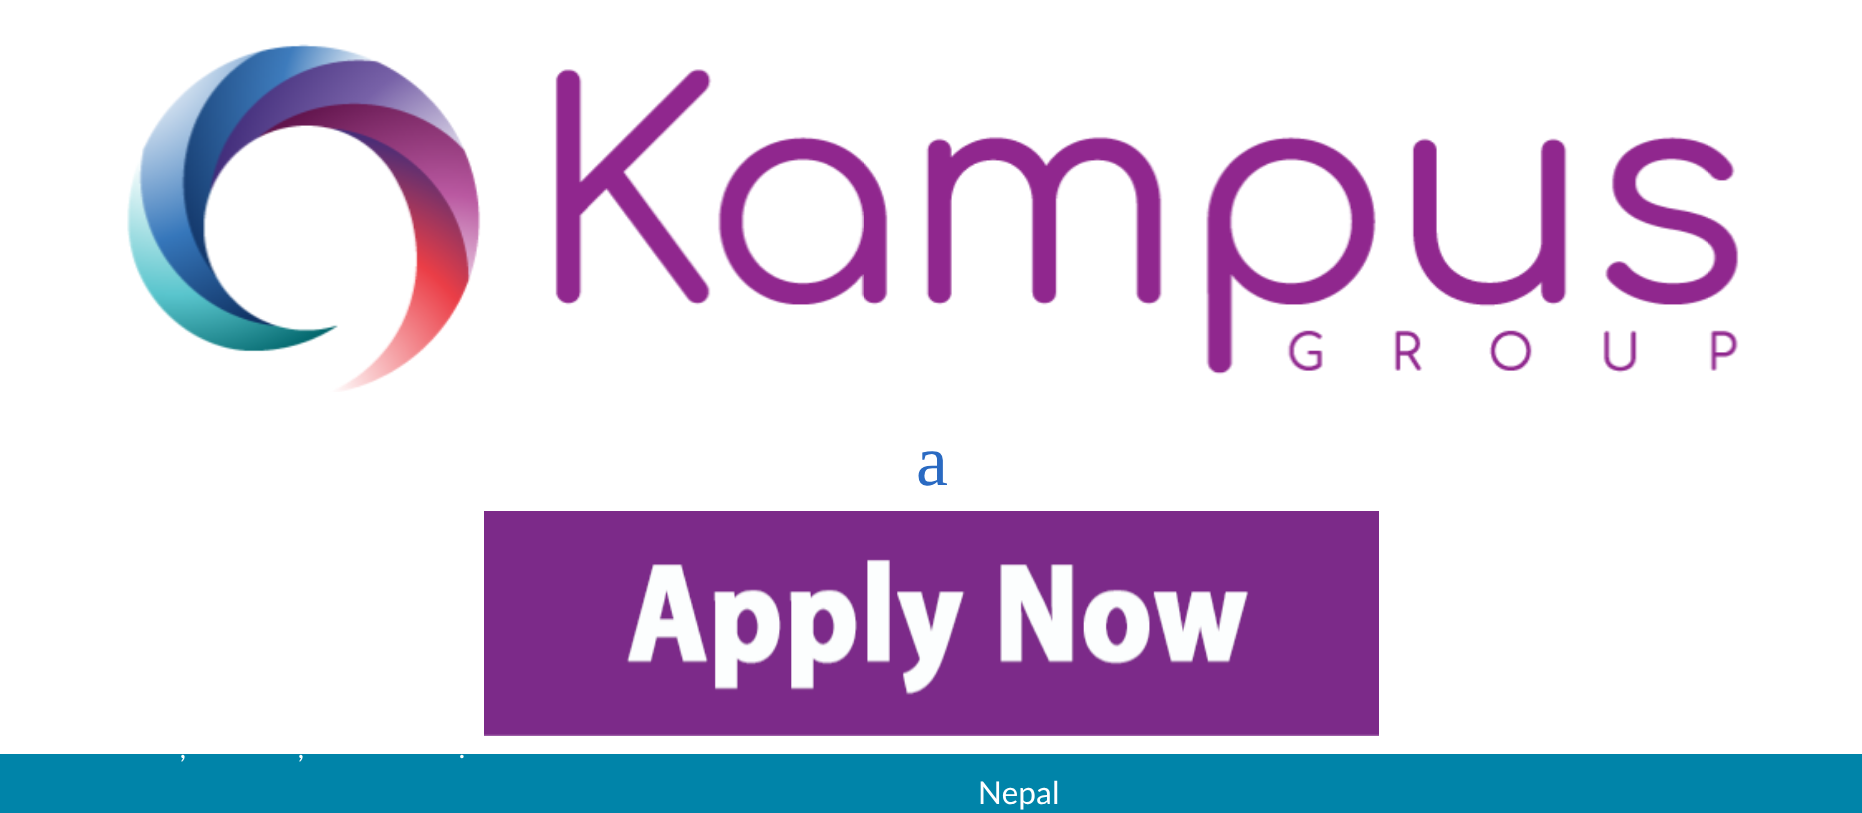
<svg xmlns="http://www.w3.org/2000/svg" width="1862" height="813">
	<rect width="100%" height="100%" fill="#0084A9" />
	<rect x="0" y="0" width="1862" height="754" fill="#FFFFFF" />
	<image x="127" y="44" width="1612" height="348" href="assets/img1.png" />
	<text x="916" y="485" font-family="Liberation Serif" font-size="72" fill="#2A6AC2">a</text>
	<image x="484" y="511" width="895" height="225" href="assets/img2.png" />
	<g font-family="Lato" font-size="27" fill="#FFFFFF">
		<text x="180" y="758">,</text>
		<text x="298" y="758">,</text>
		<text x="459" y="758">.</text>
	</g>
	<text x="978" y="804" font-family="Lato" font-size="31.5" fill="#FFFFFF">Nepal</text>
</svg>
